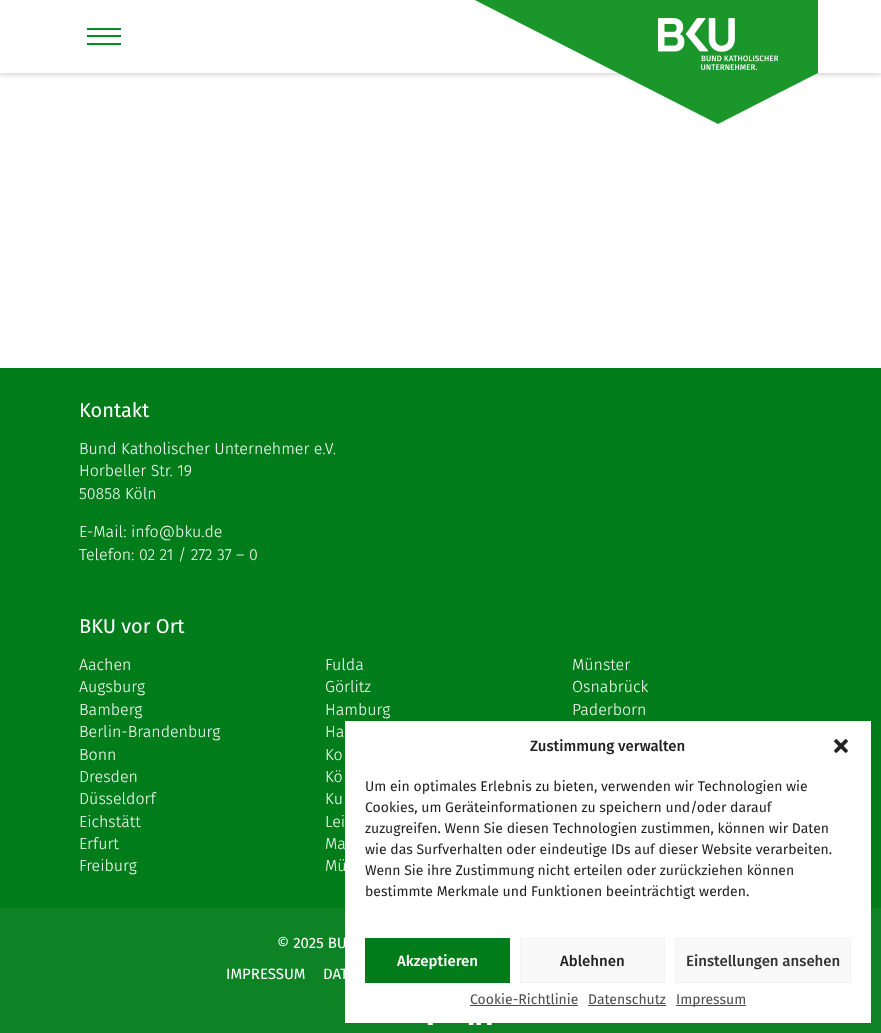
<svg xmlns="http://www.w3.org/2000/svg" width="881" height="1033">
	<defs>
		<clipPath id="clip1"><rect x="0" y="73" width="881" height="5" /></clipPath>
	</defs>
	<rect width="100%" height="100%" fill="#FFFFFF" />
	<g clip-path="url(#clip1)">
		<rect x="0" y="2" width="881" height="73" fill="#000000" fill-opacity="0.16" filter="blur(2.5px)" />
	</g>
	<rect x="87" y="28" width="34" height="2" fill="#009020" />
	<rect x="87" y="35" width="34" height="2" fill="#009020" />
	<rect x="87" y="43" width="34" height="2" fill="#009020" />
	<path d="M363-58V-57L718 124L818 73V-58Z" fill="#1A962B" />
	<image x="658" y="18" width="120" height="52" href="assets/img1.png" />
	<rect x="0" y="368" width="881" height="540" fill="#007C1B" />
	<text x="79" y="417" font-family="Fira Sans" font-size="20" fill="#FFFFFF">Kontakt</text>
	<g font-family="Fira Sans" font-size="16" font-weight="300" fill="#FFFFFF">
		<text x="79" y="454">Bund Katholischer Unternehmer e.V.</text>
		<text x="79" y="476">Horbeller Str. 19</text>
		<text x="79" y="499">50858 Köln</text>
		<text x="79" y="537">E-Mail: info@bku.de</text>
		<text x="79" y="560">Telefon: 02 21 / 272 37 – 0</text>
	</g>
	<text x="79" y="633" font-family="Fira Sans" font-size="20" fill="#FFFFFF">BKU vor Ort</text>
	<g font-family="Fira Sans" font-size="16" font-weight="300" fill="#FFFFFF">
		<text x="79" y="670">Aachen</text>
		<text x="325" y="670">Fulda</text>
		<text x="572" y="670">Münster</text>
		<text x="79" y="692">Augsburg</text>
		<text x="325" y="692">Görlitz</text>
		<text x="572" y="692">Osnabrück</text>
		<text x="79" y="715">Bamberg</text>
		<text x="325" y="715">Hamburg</text>
		<text x="572" y="715">Paderborn</text>
		<text x="79" y="737">Berlin-Brandenburg</text>
		<text x="325" y="737">Ha</text>
		<text x="79" y="760">Bonn</text>
		<text x="325" y="760">Ko</text>
		<text x="79" y="782">Dresden</text>
		<text x="325" y="782">Kö</text>
		<text x="79" y="804">Düsseldorf</text>
		<text x="325" y="804">Ku</text>
		<text x="79" y="827">Eichstätt</text>
		<text x="325" y="827">Lei</text>
		<text x="79" y="849">Erfurt</text>
		<text x="325" y="849">Ma</text>
		<text x="79" y="871">Freiburg</text>
		<text x="325" y="871">Mü</text>
	</g>
	<rect x="0" y="908" width="881" height="125" fill="#0D8326" />
	<g font-family="Fira Sans" font-size="15" fill="#FFFFFF">
		<text x="277" y="948">© 2025 BU</text>
		<text x="226" y="979">IMPRESSUM</text>
		<text x="323" y="979">DAT</text>
	</g>
	<image x="427" y="1023" width="6" height="2" href="assets/img2.png" />
	<image x="468" y="1023" width="24" height="2" href="assets/img3.png" />
	<rect x="345" y="721" width="526" height="302" fill="#FFFFFF" />
	<text x="530" y="751" font-family="Fira Sans" font-size="15" font-weight="500" fill="#222222">Zustimmung verwalten</text>
	<image x="834" y="739" width="14" height="14" href="assets/img4.png" />
	<g font-family="Fira Sans" font-size="14" fill="#222222">
		<text x="365" y="791">Um ein optimales Erlebnis zu bieten, verwenden wir Technologien wie</text>
		<text x="365" y="812">Cookies, um Geräteinformationen zu speichern und/oder darauf</text>
		<text x="365" y="833">zuzugreifen. Wenn Sie diesen Technologien zustimmen, können wir Daten</text>
		<text x="365" y="854">wie das Surfverhalten oder eindeutige IDs auf dieser Website verarbeiten.</text>
		<text x="365" y="875">Wenn Sie ihre Zustimmung nicht erteilen oder zurückziehen können</text>
		<text x="365" y="896">bestimmte Merkmale und Funktionen beeinträchtigt werden.</text>
	</g>
	<rect x="365" y="938" width="145" height="45" fill="#007C1B" />
	<text x="397" y="966" font-family="Fira Sans" font-size="15" font-weight="500" fill="#FFFFFF">Akzeptieren</text>
	<rect x="520.5" y="938.5" width="144" height="44" fill="#F9F9F9" stroke="#F2F2F2" />
	<text x="560" y="966" font-family="Fira Sans" font-size="15" font-weight="500" fill="#222222">Ablehnen</text>
	<rect x="675.5" y="938.5" width="175" height="44" fill="#F9F9F9" stroke="#F2F2F2" />
	<text x="686" y="966" font-family="Fira Sans" font-size="15" font-weight="500" fill="#333333">Einstellungen ansehen</text>
	<text x="470" y="1004" font-family="Fira Sans" font-size="14" fill="#4C4C4C">Cookie-Richtlinie</text>
	<rect x="470" y="1005" width="108" height="1" fill="#4C4C4C" />
	<text x="588" y="1004" font-family="Fira Sans" font-size="14" fill="#4C4C4C">Datenschutz</text>
	<rect x="588" y="1005" width="78" height="1" fill="#4C4C4C" />
	<rect x="676" y="1005" width="70" height="1" fill="#4C4C4C" />
	<text x="676" y="1004" font-family="Fira Sans" font-size="14" fill="#4C4C4C">Impressum</text>
</svg>
